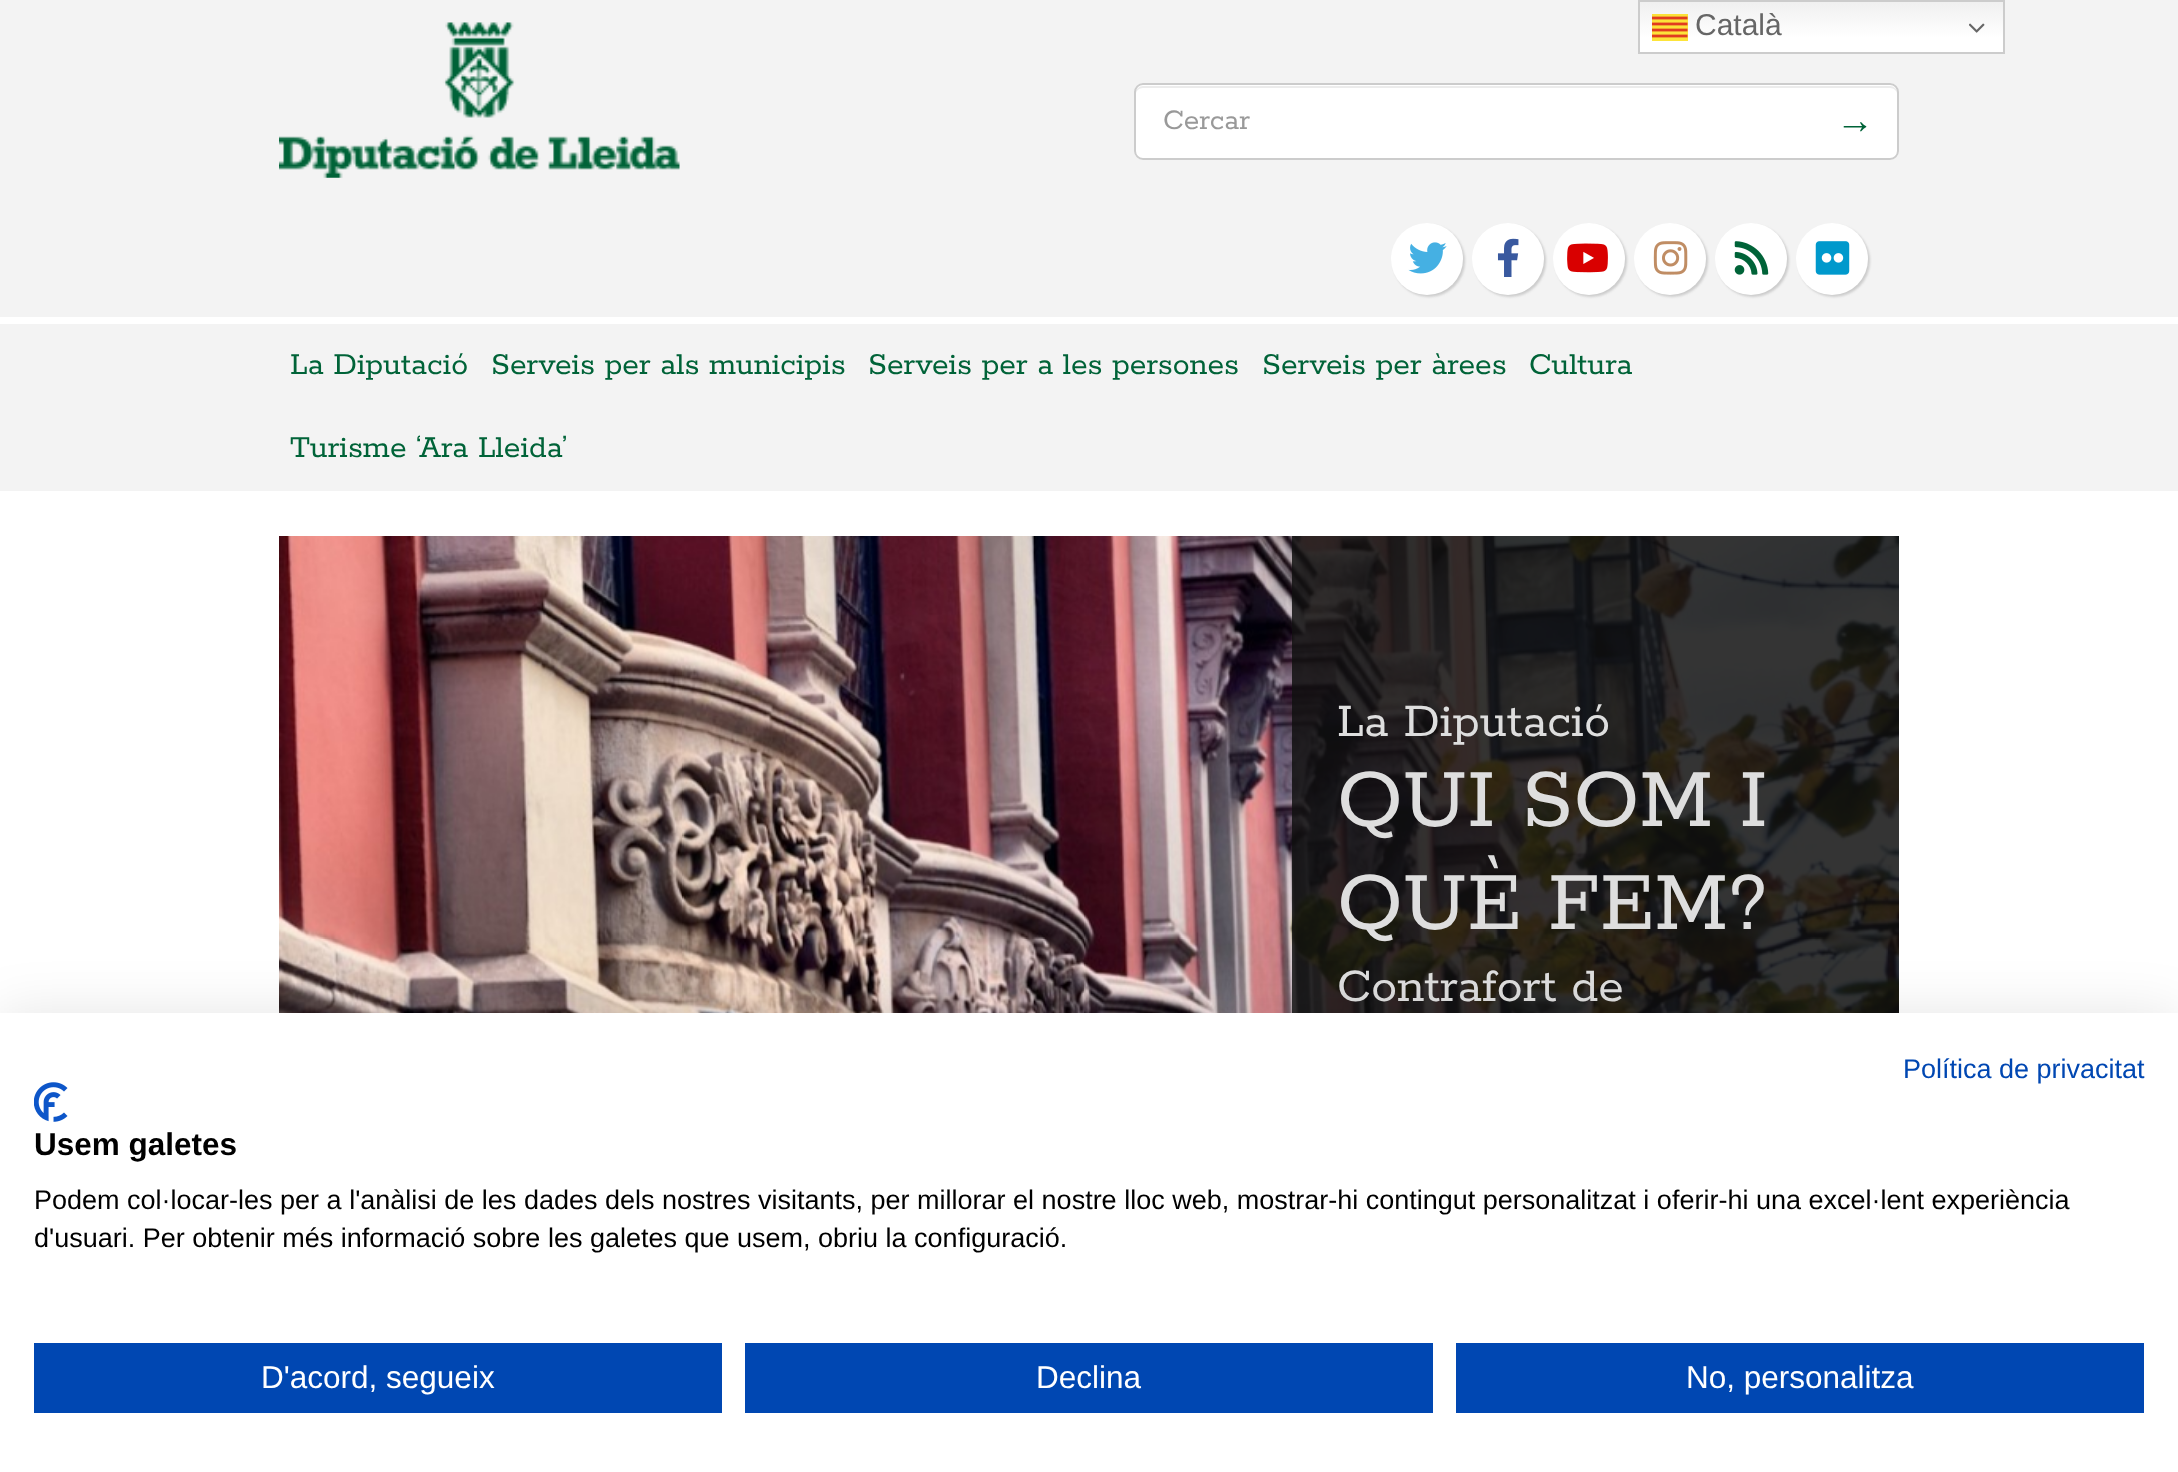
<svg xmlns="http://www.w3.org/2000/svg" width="2178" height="1472">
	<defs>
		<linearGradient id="g1" gradientUnits="userSpaceOnUse" x1="1821" y1="0" x2="1821" y2="54"><stop offset="0" stop-color="#EFEFEF" /><stop offset="0.7" stop-color="#FFFFFF" /></linearGradient>
	</defs>
	<rect width="100%" height="100%" fill="#FFFFFF" />
	<rect x="0" y="0" width="2178" height="317" fill="#F3F3F3" />
	<rect x="1640" y="2" width="363" height="50" fill="url(#g1)" />
	<rect x="1639" y="1" width="365" height="52" fill="none" stroke="#CCCCCC" stroke-width="2" />
	<image x="1652" y="14" width="36" height="27" href="assets/img1.png" />
	<text x="1695" y="35" font-family="Liberation Sans" font-size="30" fill="#666666">Català</text>
	<image x="1969" y="23" width="16" height="10" href="assets/img2.png" />
	<image x="279" y="22" width="401" height="156" href="assets/img3.png" />
	<rect x="1134" y="83" width="765" height="77" rx="9" fill="#FFFFFF" />
	<path d="M1143 88H1890C1894 88 1897 91 1897 94V93C1897 89 1894 86 1890 86H1143C1139 86 1136 89 1136 93V94C1136 91 1139 88 1143 88Z" fill="#ECECEC" />
	<rect x="1135" y="84" width="763" height="75" rx="8" fill="none" stroke="#CCCCCC" stroke-width="2" />
	<text x="1163" y="129" font-family="Rokkitt" font-size="31.5" fill="#999999">Cercar</text>
	<text x="1836" y="133" font-family="Liberation Serif" font-size="38" fill="#006338">→</text>
	<rect x="1393" y="225" width="72" height="72" rx="36" fill="#CCCCCC" filter="blur(1px)" />
	<circle cx="1427" cy="259" r="36" fill="#FFFFFF" />
	<image x="1408" y="242" width="39" height="32" href="assets/img4.png" />
	<rect x="1474" y="225" width="72" height="72" rx="36" fill="#CCCCCC" filter="blur(1px)" />
	<circle cx="1508" cy="259" r="36" fill="#FFFFFF" />
	<image x="1497" y="238" width="22" height="39" href="assets/img5.png" />
	<rect x="1555" y="225" width="72" height="72" rx="36" fill="#CCCCCC" filter="blur(1px)" />
	<circle cx="1589" cy="259" r="36" fill="#FFFFFF" />
	<image x="1567" y="243" width="41" height="30" href="assets/img6.png" />
	<rect x="1636" y="225" width="72" height="72" rx="36" fill="#CCCCCC" filter="blur(1px)" />
	<circle cx="1670" cy="259" r="36" fill="#FFFFFF" />
	<image x="1653" y="241" width="35" height="34" href="assets/img7.png" />
	<rect x="1717" y="225" width="72" height="72" rx="36" fill="#CCCCCC" filter="blur(1px)" />
	<circle cx="1751" cy="259" r="36" fill="#FFFFFF" />
	<image x="1734" y="241" width="35" height="34" href="assets/img8.png" />
	<rect x="1798" y="225" width="72" height="72" rx="36" fill="#CCCCCC" filter="blur(1px)" />
	<circle cx="1832" cy="259" r="36" fill="#FFFFFF" />
	<image x="1815" y="241" width="35" height="34" href="assets/img9.png" />
	<rect x="0" y="324" width="2178" height="167" fill="#F3F3F3" />
	<g font-family="Rokkitt" font-size="33.75" fill="#006338">
		<text x="290" y="374">La Diputació</text>
		<text x="491" y="374">Serveis per als municipis</text>
		<text x="868" y="374">Serveis per a les persones</text>
		<text x="1262" y="374">Serveis per àrees</text>
		<text x="1529" y="374">Cultura</text>
		<text x="290" y="457">Turisme ‘Ara Lleida’</text>
	</g>
	<image x="279" y="536" width="1620" height="477" href="assets/img10.png" />
	<rect x="1292" y="536" width="607" height="477" fill="#111111" fill-opacity="0.85" />
	<text x="1337" y="736" font-family="Rokkitt" font-size="51.75" fill="#DEDEDE">La Diputació</text>
	<g font-family="Rokkitt" font-size="92.25" fill="#DEDEDE">
		<text x="1337" y="826">QUI SOM I</text>
		<text x="1337" y="929">QUÈ FEM?</text>
	</g>
	<text x="1337" y="1001" font-family="Rokkitt" font-size="51.75" fill="#DEDEDE">Contrafort de</text>
	<rect x="0" y="1013" width="2178" height="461" fill="#000000" fill-opacity="0.1" filter="blur(27px)" />
	<rect x="0" y="1013" width="2178" height="459" fill="#FFFFFF" />
	<text x="1903" y="1078" font-family="Liberation Sans" font-size="27" fill="#0047B2">Política de privacitat</text>
	<image x="34" y="1082" width="34" height="40" href="assets/img11.png" />
	<text x="34" y="1155" font-family="Liberation Sans" font-size="31.5" font-weight="700" fill="#000000">Usem galetes</text>
	<g font-family="Liberation Sans" font-size="27" fill="#000000">
		<text x="34" y="1209">Podem col·locar-les per a l'anàlisi de les dades dels nostres visitants, per millorar el nostre lloc web, mostrar-hi contingut personalitzat i oferir-hi una excel·lent experiència</text>
		<text x="34" y="1247">d'usuari. Per obtenir més informació sobre les galetes que usem, obriu la configuració.</text>
	</g>
	<rect x="34" y="1343" width="688" height="70" fill="#0047B2" />
	<text x="261" y="1388" font-family="Liberation Sans" font-size="31.5" fill="#FFFFFF">D'acord, segueix</text>
	<rect x="745" y="1343" width="688" height="70" fill="#0047B2" />
	<text x="1036" y="1388" font-family="Liberation Sans" font-size="31.5" fill="#FFFFFF">Declina</text>
	<rect x="1456" y="1343" width="688" height="70" fill="#0047B2" />
	<text x="1686" y="1388" font-family="Liberation Sans" font-size="31.5" fill="#FFFFFF">No, personalitza</text>
</svg>
